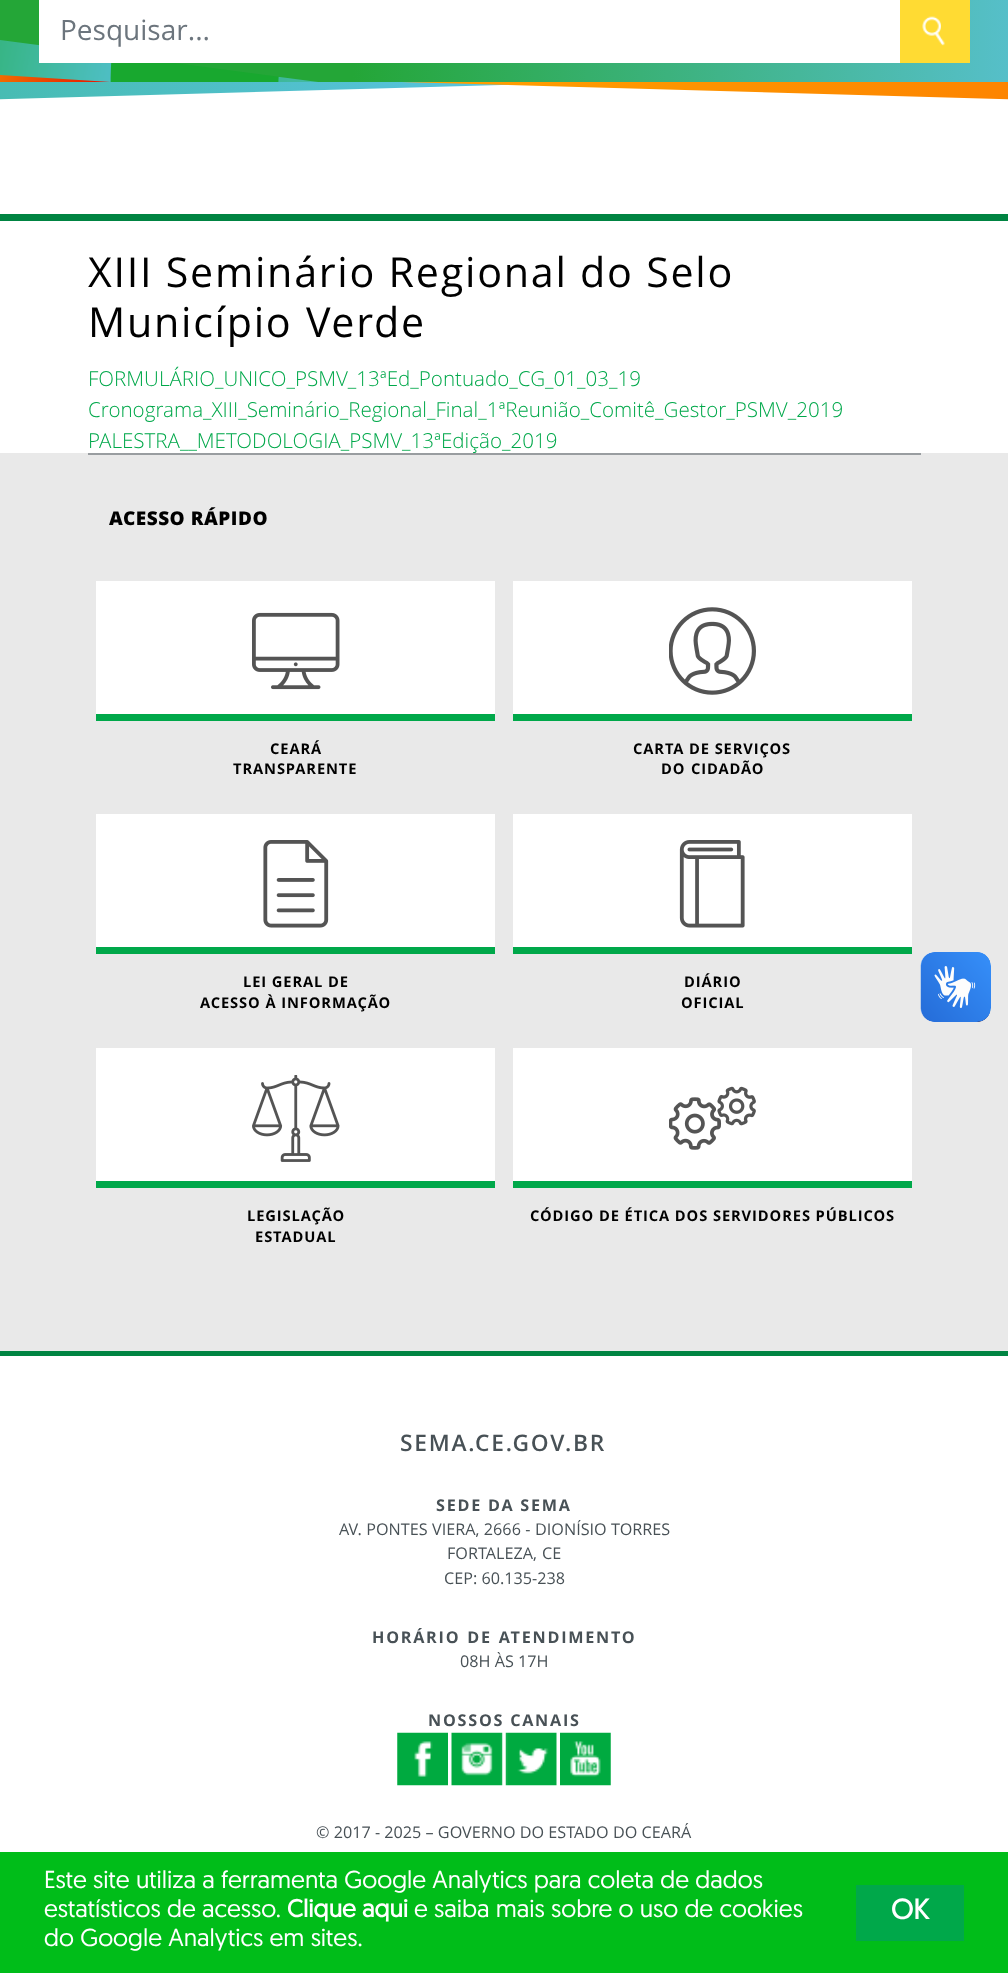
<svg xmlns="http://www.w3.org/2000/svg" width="1008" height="1973">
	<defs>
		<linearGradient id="g1" gradientUnits="userSpaceOnUse" x1="1008" y1="-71" x2="0" y2="-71"><stop offset="0" stop-color="#56BFC9" /><stop offset="0.65" stop-color="#24A637" /></linearGradient>
		<linearGradient id="g2" gradientUnits="userSpaceOnUse" x1="-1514" y1="132" x2="609" y2="132"><stop offset="0" stop-color="#18A82F" /><stop offset="1" stop-color="#5BC4E8" /></linearGradient>
		<linearGradient id="g3" gradientUnits="userSpaceOnUse" x1="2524" y1="92" x2="401" y2="92"><stop offset="0" stop-color="#F83D00" /><stop offset="1" stop-color="#FFA100" /></linearGradient>
	</defs>
	<rect width="100%" height="100%" fill="#FFFFFF" />
	<rect x="0" y="0" width="1008" height="82" fill="url(#g1)" />
	<image x="0" y="40" width="318" height="42" href="assets/img1.png" />
	<rect x="39" y="0" width="861" height="63" fill="#FFFFFF" />
	<text x="60" y="40" font-family="Open Sans" font-size="28" fill="#6C757D">Pesquisar...</text>
	<rect x="900" y="0" width="70" height="63" fill="#FFDB33" />
	<image x="922" y="16" width="23" height="30" href="assets/img2.png" />
	<path d="M-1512 82V142L609 82Z" fill="url(#g2)" />
	<path d="M401 82L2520 142V82Z" fill="url(#g3)" />
	<rect x="0" y="214" width="1008" height="7" fill="#008442" />
	<g font-family="Open Sans" font-size="41.2" letter-spacing="1.75" fill="#000000">
		<text x="88" y="287">XIII Seminário Regional do Selo</text>
		<text x="88" y="337" word-spacing="1">Município Verde</text>
	</g>
	<g font-family="Open Sans" font-size="20.6" font-weight="300" fill="#00A84A">
		<text x="88" y="386">FORMULÁRIO_UNICO_PSMV_13ªEd_Pontuado_CG_01_03_19</text>
		<text x="88" y="417">Cronograma_XIII_Seminário_Regional_Final_1ªReunião_Comitê_Gestor_PSMV_2019</text>
		<text x="88" y="448">PALESTRA__METODOLOGIA_PSMV_13ªEdição_2019</text>
	</g>
	<rect x="0" y="453" width="1008" height="898" fill="#E9E9E9" />
	<rect x="88" y="453" width="833" height="2" fill="#999DA0" />
	<text x="109" y="525" font-family="Open Sans" font-size="19" font-weight="800" letter-spacing="0.5" fill="#000000">ACESSO RÁPIDO</text>
	<rect x="96" y="581" width="399" height="133" fill="#FFFFFF" />
	<image x="252" y="612" width="88" height="78" href="assets/img3.png" />
	<rect x="96" y="714" width="399" height="7" fill="#00A84A" />
	<g font-family="Open Sans" font-size="14.7" font-weight="700" letter-spacing="0.9" fill="#000000">
		<text x="270" y="754">CEARÁ</text>
		<text x="233" y="774">TRANSPARENTE</text>
	</g>
	<rect x="513" y="581" width="399" height="133" fill="#FFFFFF" />
	<image x="669" y="607" width="87" height="88" href="assets/img4.png" />
	<rect x="513" y="714" width="399" height="7" fill="#00A84A" />
	<g font-family="Open Sans" font-size="14.7" font-weight="700" letter-spacing="0.9" fill="#000000">
		<text x="633" y="754">CARTA DE SERVIÇOS</text>
		<text x="661" y="774" word-spacing="1">DO CIDADÃO</text>
	</g>
	<rect x="96" y="814" width="399" height="133" fill="#FFFFFF" />
	<image x="263" y="840" width="66" height="88" href="assets/img5.png" />
	<rect x="96" y="947" width="399" height="7" fill="#00A84A" />
	<g font-family="Open Sans" font-size="14.7" font-weight="700" letter-spacing="0.9" fill="#000000">
		<text x="243" y="987">LEI GERAL DE</text>
		<text x="200" y="1008">ACESSO À INFORMAÇÃO</text>
	</g>
	<rect x="513" y="814" width="399" height="133" fill="#FFFFFF" />
	<image x="679" y="840" width="66" height="88" href="assets/img6.png" />
	<rect x="513" y="947" width="399" height="7" fill="#00A84A" />
	<g font-family="Open Sans" font-size="14.7" font-weight="700" letter-spacing="0.9" fill="#000000">
		<text x="684" y="987">DIÁRIO</text>
		<text x="681" y="1008">OFICIAL</text>
	</g>
	<rect x="96" y="1048" width="399" height="133" fill="#FFFFFF" />
	<image x="252" y="1075" width="88" height="87" href="assets/img7.png" />
	<rect x="96" y="1181" width="399" height="7" fill="#00A84A" />
	<g font-family="Open Sans" font-size="14.7" font-weight="700" letter-spacing="0.9" fill="#000000">
		<text x="247" y="1221">LEGISLAÇÃO</text>
		<text x="255" y="1242">ESTADUAL</text>
	</g>
	<rect x="513" y="1048" width="399" height="133" fill="#FFFFFF" />
	<image x="669" y="1086" width="87" height="64" href="assets/img8.png" />
	<rect x="513" y="1181" width="399" height="7" fill="#00A84A" />
	<text x="530" y="1221" font-family="Open Sans" font-size="14.7" font-weight="700" letter-spacing="0.9" fill="#000000">CÓDIGO DE ÉTICA DOS SERVIDORES PÚBLICOS</text>
	<image x="920" y="952" width="71" height="70" href="assets/img9.png" />
	<image x="921" y="952" width="70" height="70" href="assets/img10.png" />
	<rect x="0" y="1351" width="1008" height="5" fill="#008442" />
	<text x="400" y="1451" font-family="Open Sans" font-size="22.75" font-weight="600" letter-spacing="1.75" fill="#485156">SEMA.CE.GOV.BR</text>
	<text x="436" y="1511" font-family="Open Sans" font-size="16.2" font-weight="700" letter-spacing="1.75" fill="#485156">SEDE DA SEMA</text>
	<g font-family="Open Sans" font-size="16.2" fill="#485156">
		<text x="339" y="1535" word-spacing="0.25">AV. PONTES VIERA, 2666 - DIONÍSIO TORRES</text>
		<text x="447" y="1559" word-spacing="1">FORTALEZA, CE</text>
		<text x="444" y="1584">CEP: 60.135-238</text>
	</g>
	<text x="372" y="1643" word-spacing="1" font-family="Open Sans" font-size="16.2" font-weight="700" letter-spacing="1.75" fill="#485156">HORÁRIO DE ATENDIMENTO</text>
	<text x="460" y="1667" font-family="Open Sans" font-size="16.2" fill="#485156">08H ÀS 17H</text>
	<text x="428" y="1726" font-family="Open Sans" font-size="16.2" font-weight="700" letter-spacing="1.75" fill="#485156">NOSSOS CANAIS</text>
	<image x="397" y="1732" width="51" height="54" href="assets/img11.png" />
	<image x="451" y="1732" width="52" height="54" href="assets/img12.png" />
	<image x="505" y="1732" width="52" height="54" href="assets/img13.png" />
	<image x="560" y="1732" width="51" height="54" href="assets/img14.png" />
	<text x="316" y="1838" font-family="Open Sans" font-size="16.2" fill="#485156">© 2017 - 2025 – GOVERNO DO ESTADO DO CEARÁ</text>
	<rect x="0" y="1852" width="1008" height="121" fill="#00BD19" />
	<g font-family="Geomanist" font-size="24.5" fill="#FFFFFF">
		<text x="44" y="1888">Este site utiliza a ferramenta Google Analytics para coleta de dados</text>
		<text x="44" y="1917">estatísticos de acesso.</text>
	</g>
	<text x="287" y="1917" font-family="Geomanist" font-size="24.5" font-weight="700" fill="#FFFFFF">Clique aqui</text>
	<g font-family="Geomanist" font-size="24.5" fill="#FFFFFF">
		<text x="414" y="1917">e saiba mais sobre o uso de cookies</text>
		<text x="44" y="1946">do Google Analytics em sites.</text>
	</g>
	<rect x="856" y="1885" width="108" height="56" fill="#00A84A" />
	<text x="891" y="1919" font-family="Geomanist" font-size="28" font-weight="700" fill="#FFFFFF">OK</text>
</svg>
